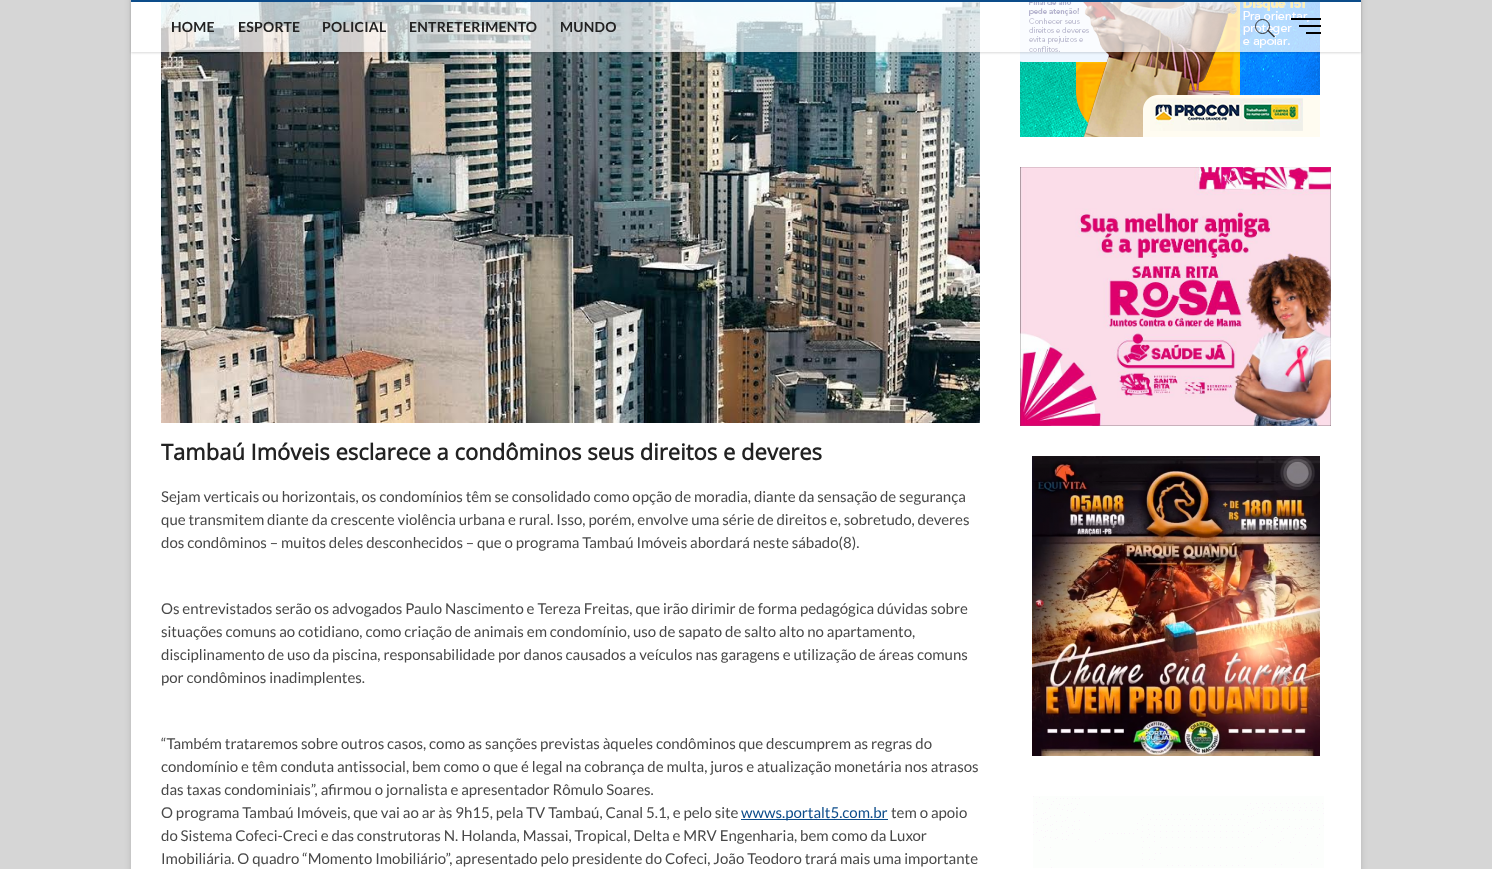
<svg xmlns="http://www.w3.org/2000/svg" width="1492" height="869">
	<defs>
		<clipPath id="clip1"><path d="M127 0H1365V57H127ZM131 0H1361V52H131Z" clip-rule="evenodd" /></clipPath>
	</defs>
	<rect width="100%" height="100%" fill="#D6D6D6" />
	<rect x="131" y="-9" width="1230" height="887" fill="#000000" fill-opacity="0.15" filter="blur(3px)" />
	<rect x="131" y="2" width="1230" height="867" fill="#FFFFFF" />
	<image x="161" y="2" width="819" height="421" href="assets/img1.png" />
	<image x="1020" y="2" width="300" height="135" href="assets/img2.png" />
	<g clip-path="url(#clip1)">
		<rect x="131" y="1" width="1230" height="52" fill="#000000" fill-opacity="0.15" filter="blur(1px)" />
	</g>
	<rect x="161" y="2" width="1159" height="50" fill="#FFFFFF" fill-opacity="0.7" />
	<rect x="131" y="0" width="1230" height="2" fill="#0C4C8A" />
	<g font-family="Lato" font-size="14" font-weight="700" letter-spacing="0.25" fill="#222222">
		<text x="171" y="32">HOME</text>
		<text x="238" y="32">ESPORTE</text>
		<text x="322" y="32">POLICIAL</text>
		<text x="409" y="32">ENTRETERIMENTO</text>
		<text x="560" y="32">MUNDO</text>
	</g>
	<circle cx="1262.5" cy="26.5" r="7" fill="none" stroke="#333333" />
	<path d="M1267 30.5L1268 29.5L1275 36.5L1274 37.5Z" fill="#333333" />
	<rect x="1299" y="25" width="22" height="2" fill="#000000" />
	<rect x="1291" y="18" width="30" height="2" fill="#000000" />
	<rect x="1306" y="32" width="15" height="2" fill="#000000" />
	<text x="161" y="460" font-family="Open Sans" font-size="22" font-weight="700" fill="#222222">Tambaú Imóveis esclarece a condôminos seus direitos e deveres</text>
	<g font-family="Lato" font-size="15" fill="#484848">
		<text x="161" y="502">Sejam verticais ou horizontais, os condomínios têm se consolidado como opção de moradia, diante da sensação de segurança</text>
		<text x="161" y="525">que transmitem diante da crescente violência urbana e rural. Isso, porém, envolve uma série de direitos e, sobretudo, deveres</text>
		<text x="161" y="548">dos condôminos – muitos deles desconhecidos – que o programa Tambaú Imóveis abordará neste sábado(8).</text>
		<text x="161" y="614">Os entrevistados serão os advogados Paulo Nascimento e Tereza Freitas, que irão dirimir de forma pedagógica dúvidas sobre</text>
		<text x="161" y="637">situações comuns ao cotidiano, como criação de animais em condomínio, uso de sapato de salto alto no apartamento,</text>
		<text x="161" y="660">disciplinamento de uso da piscina, responsabilidade por danos causados a veículos nas garagens e utilização de áreas comuns</text>
		<text x="161" y="683">por condôminos inadimplentes.</text>
		<text x="161" y="749">“Também trataremos sobre outros casos, como as sanções previstas àqueles condôminos que descumprem as regras do</text>
		<text x="161" y="772">condomínio e têm conduta antissocial, bem como o que é legal na cobrança de multa, juros e atualização monetária nos atrasos</text>
		<text x="161" y="795">das taxas condominiais”, afirmou o jornalista e apresentador Rômulo Soares.</text>
		<text x="161" y="818">O programa Tambaú Imóveis, que vai ao ar às 9h15, pela TV Tambaú, Canal 5.1, e pelo site</text>
	</g>
	<rect x="741" y="819" width="147" height="1" fill="#0C4C8A" />
	<text x="741" y="818" font-family="Lato" font-size="15" fill="#0C4C8A">wwws.portalt5.com.br</text>
	<g font-family="Lato" font-size="15" fill="#484848">
		<text x="891" y="818">tem o apoio</text>
		<text x="161" y="841">do Sistema Cofeci-Creci e das construtoras N. Holanda, Massai, Tropical, Delta e MRV Engenharia, bem como da Luxor</text>
		<text x="161" y="864">Imobiliária. O quadro “Momento Imobiliário”, apresentado pelo presidente do Cofeci, João Teodoro trará mais uma importante</text>
	</g>
	<image x="1020" y="167" width="311" height="259" href="assets/img3.png" />
	<image x="1032" y="456" width="288" height="300" href="assets/img4.png" />
	<image x="1033" y="796" width="291" height="72" href="assets/img5.png" />
</svg>
